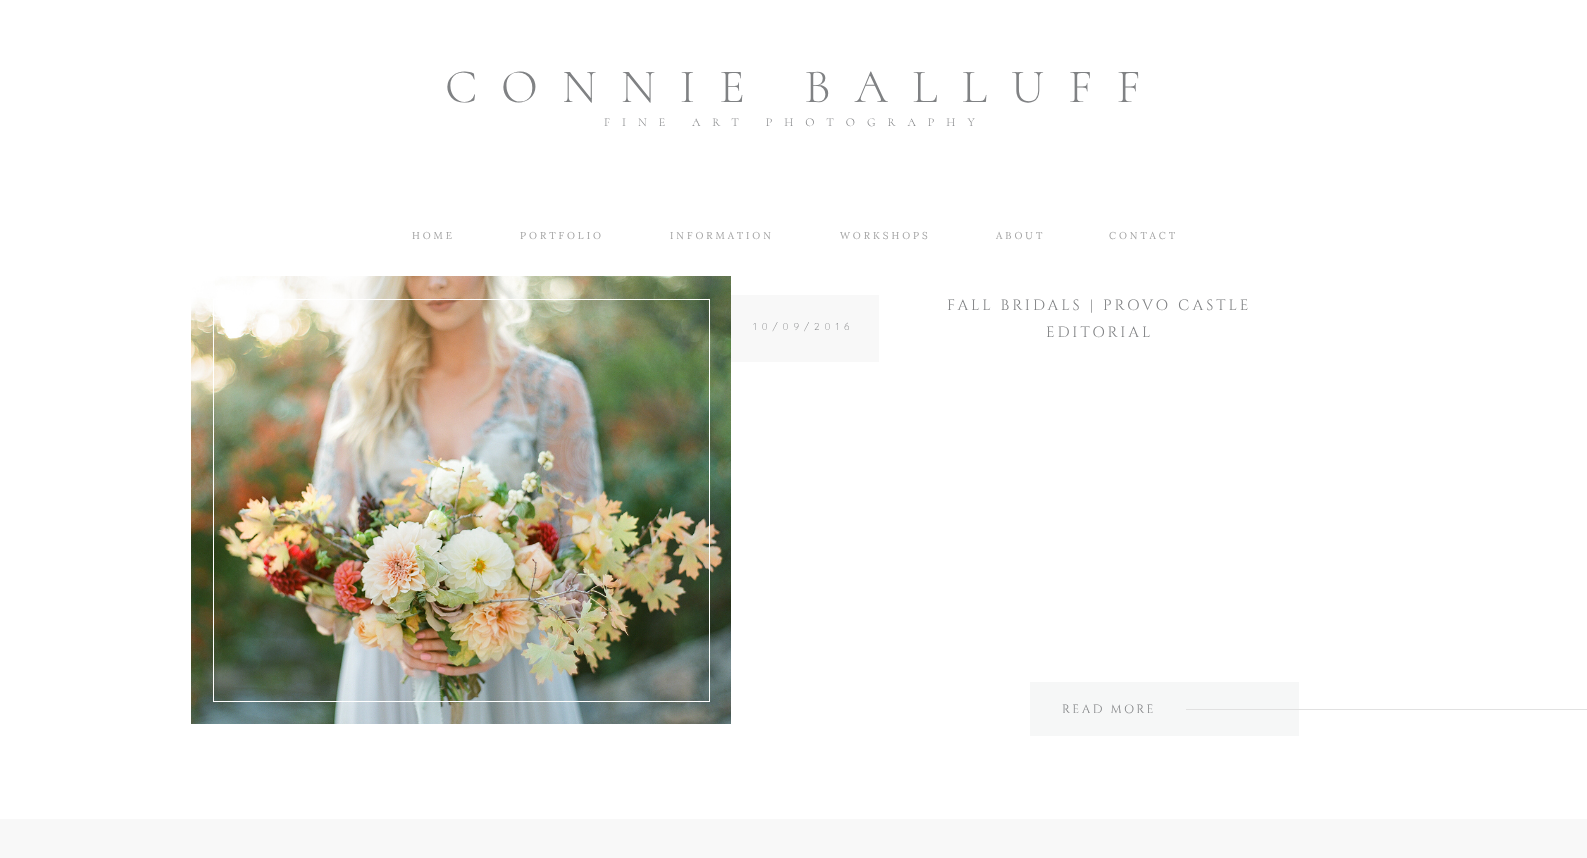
<svg xmlns="http://www.w3.org/2000/svg" width="1587" height="858">
	<rect width="100%" height="100%" fill="#FFFFFF" />
	<text x="445" y="102" font-family="Cormorant" font-size="48" font-weight="300" letter-spacing="24" fill="#808284">CONNIE BALLUFF</text>
	<text x="604" y="126" font-family="Cormorant" font-size="12" font-weight="300" letter-spacing="12" fill="#808284">FINE ART PHOTOGRAPHY</text>
	<g font-family="Lora" font-size="10" letter-spacing="3" fill="#A3A3A3">
		<text x="412" y="239">HOME</text>
		<text x="520" y="239">PORTFOLIO</text>
		<text x="670" y="239">INFORMATION</text>
		<text x="840" y="239">WORKSHOPS</text>
		<text x="996" y="239">ABOUT</text>
		<text x="1109" y="239">CONTACT</text>
	</g>
	<image x="191" y="276" width="540" height="448" href="assets/img1.png" />
	<rect x="731" y="295" width="148" height="67" fill="#F8F8F8" />
	<rect x="213.5" y="299.5" width="496" height="402" fill="none" stroke="#FFFFFF" />
	<text x="753" y="330" font-family="Quicksand" font-size="10" font-weight="300" letter-spacing="5" fill="#808284">10/09/2016</text>
	<g font-family="Cinzel" font-size="15" letter-spacing="3" fill="#808284">
		<text x="947" y="310">FALL BRIDALS | PROVO CASTLE</text>
		<text x="1046" y="337">EDITORIAL</text>
	</g>
	<rect x="1030" y="682" width="269" height="54" fill="#F6F7F7" />
	<text x="1062" y="713" font-family="Cinzel" font-size="12" letter-spacing="2.5" fill="#808284">READ MORE</text>
	<rect x="1186" y="709" width="401" height="1" fill="#E1E1E1" />
	<rect x="0" y="819" width="1587" height="39" fill="#F8F8F8" />
</svg>
